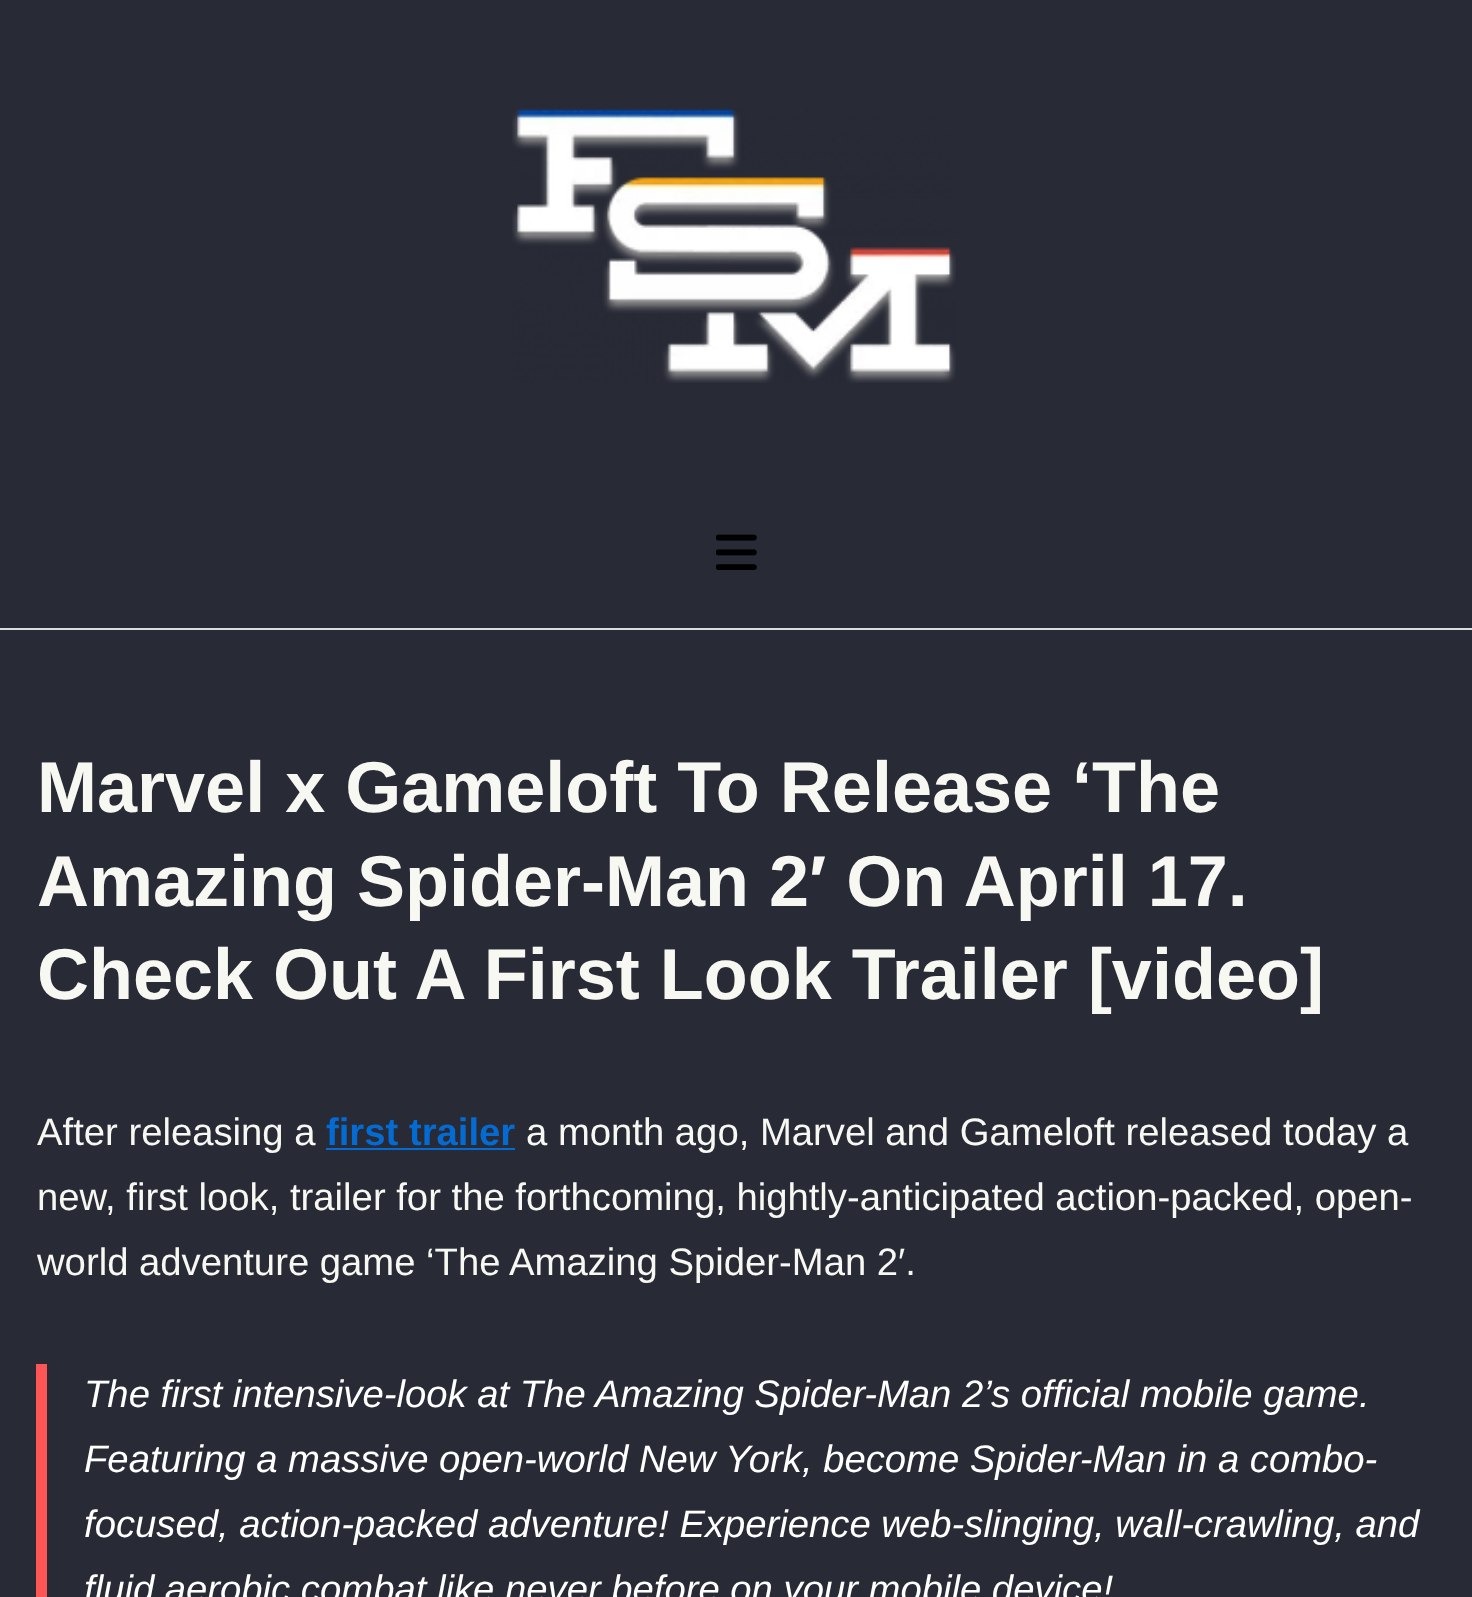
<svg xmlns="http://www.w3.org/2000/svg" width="1472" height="1597">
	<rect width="100%" height="100%" fill="#282A36" />
	<rect x="0" y="628" width="1472" height="2" fill="#DDDDDD" />
	<image x="512" y="108" width="444" height="275" href="assets/img1.png" />
	<image x="716" y="534" width="41" height="36" href="assets/img2.png" />
	<g font-family="Liberation Sans" font-size="72" font-weight="700" fill="#F8F8F2">
		<text x="37" y="812">Marvel x Gameloft To Release ‘The</text>
		<text x="37" y="906">Amazing Spider-Man 2′ On April 17.</text>
		<text x="37" y="999">Check Out A First Look Trailer [video]</text>
	</g>
	<text x="37" y="1145" font-family="Liberation Sans" font-size="38.25" fill="#F8F8F2">After releasing a</text>
	<text x="326" y="1145" font-family="Liberation Sans" font-size="38.25" font-weight="700" fill="#046BD2">first trailer</text>
	<rect x="326" y="1148" width="189" height="2" fill="#046BD2" />
	<g font-family="Liberation Sans" font-size="38.25" fill="#F8F8F2">
		<text x="526" y="1145">a month ago, Marvel and Gameloft released today a</text>
		<text x="37" y="1210">new, first look, trailer for the forthcoming, hightly-anticipated action-packed, open-</text>
		<text x="37" y="1275">world adventure game ‘The Amazing Spider-Man 2′.</text>
	</g>
	<rect x="36" y="1364" width="11" height="233" fill="#FF5555" />
	<g font-family="Liberation Sans" font-size="38.25" font-style="italic" fill="#FFFFFF">
		<text x="84" y="1407">The first intensive-look at The Amazing Spider-Man 2’s official mobile game.</text>
		<text x="84" y="1472">Featuring a massive open-world New York, become Spider-Man in a combo-</text>
		<text x="84" y="1537">focused, action-packed adventure! Experience web-slinging, wall-crawling, and</text>
		<text x="84" y="1602">fluid aerobic combat like never before on your mobile device!</text>
	</g>
</svg>
